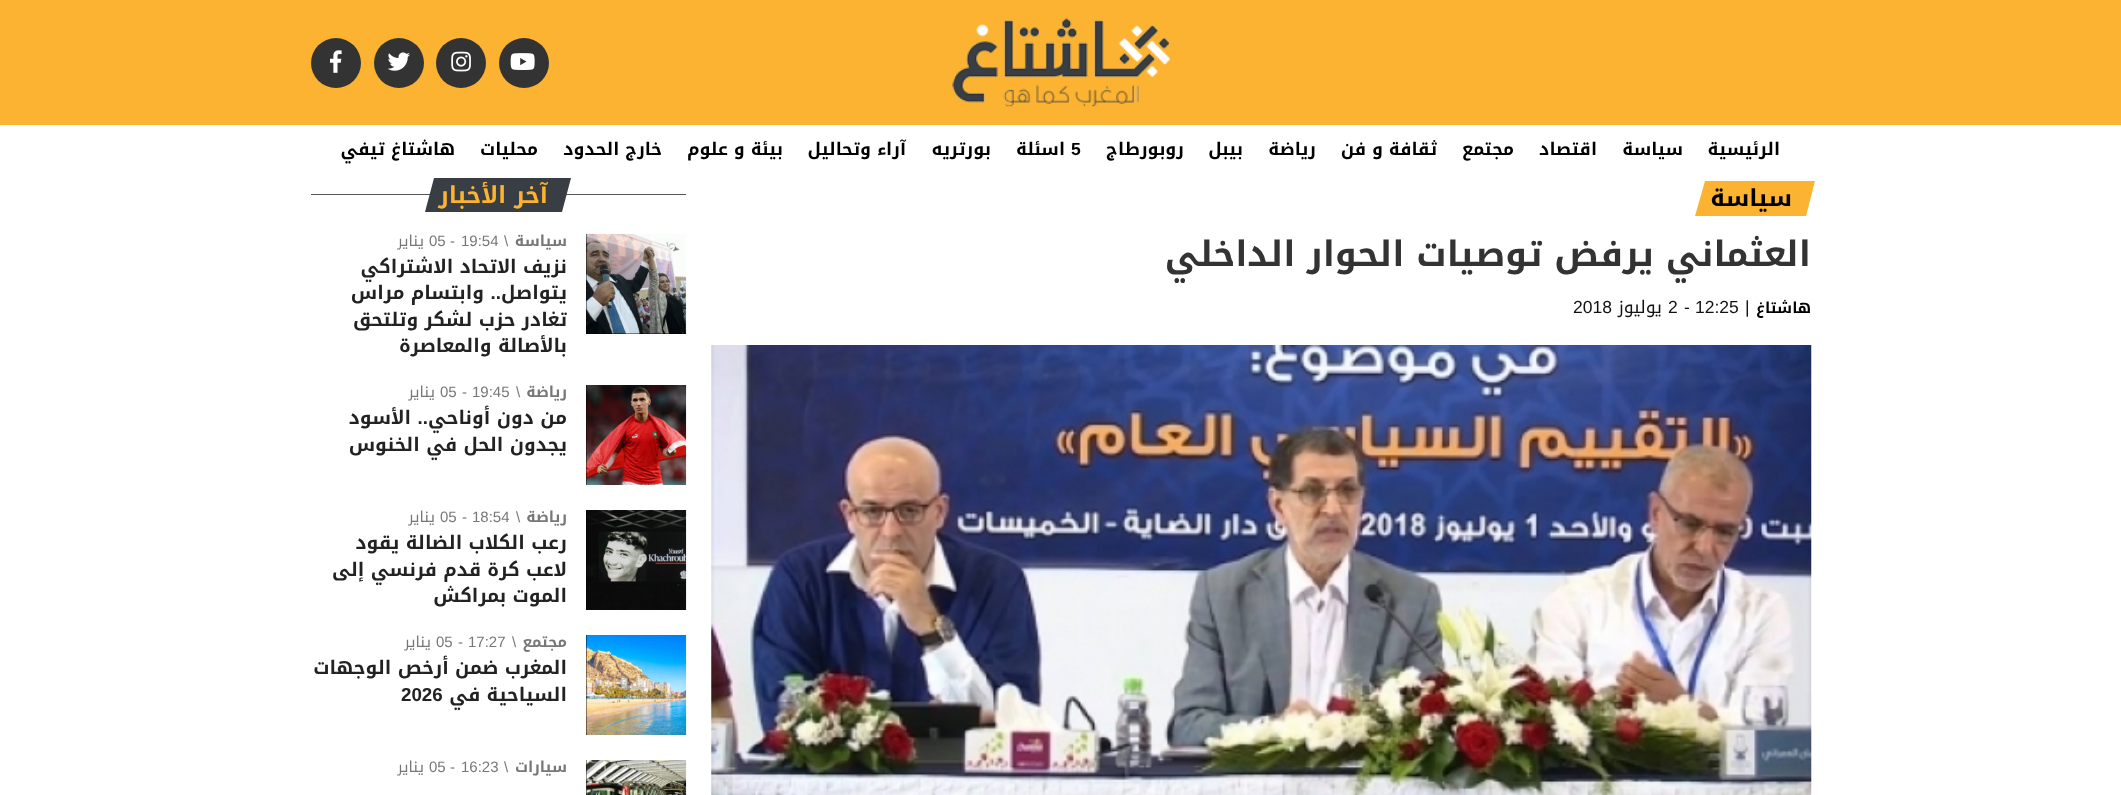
<svg xmlns="http://www.w3.org/2000/svg" width="2121" height="795">
	<rect width="100%" height="100%" fill="#FFFFFF" />
	<rect x="0" y="0" width="2121" height="125" fill="#FBB331" />
	<image x="952" y="18" width="218" height="89" href="assets/img1.png" />
	<circle cx="524" cy="63" r="25" fill="#333333" />
	<image x="510" y="53" width="25" height="17" href="assets/img2.png" />
	<circle cx="461" cy="63" r="25" fill="#333333" />
	<image x="451" y="51" width="20" height="21" href="assets/img3.png" />
	<circle cx="399" cy="63" r="25" fill="#333333" />
	<image x="387" y="52" width="23" height="19" href="assets/img4.png" />
	<circle cx="336" cy="63" r="25" fill="#333333" />
	<image x="330" y="50" width="12" height="23" href="assets/img5.png" />
	<g font-family="Noto Kufi Arabic" font-size="17.5" font-weight="700" direction="rtl" fill="#000000">
		<text x="1780" y="155">الرئيسية</text>
		<text x="1683" y="155">سياسة</text>
		<text x="1597" y="155">اقتصاد</text>
		<text x="1514" y="155">مجتمع</text>
		<text x="1437" y="155">ثقافة و فن</text>
		<text x="1316" y="155">رياضة</text>
		<text x="1243" y="155">بيبل</text>
		<text x="1184" y="155">روبورطاج</text>
	</g>
	<text x="1071" y="155" font-family="Liberation Sans" font-size="17.5" font-weight="700" fill="#000000">5</text>
	<g font-family="Noto Kufi Arabic" font-size="17.5" font-weight="700" direction="rtl" fill="#000000">
		<text x="1065" y="155">اسئلة</text>
		<text x="991" y="155">بورتريه</text>
		<text x="906" y="155">آراء وتحاليل</text>
		<text x="783" y="155">بيئة و علوم</text>
		<text x="662" y="155">خارج الحدود</text>
		<text x="538" y="155">محليات</text>
		<text x="455" y="155">هاشتاغ تيفي</text>
	</g>
	<path d="M1705 181H1815L1806 216H1695Z" fill="#FBB331" />
	<text x="1792" y="206" font-family="Noto Kufi Arabic" font-size="23.5" font-weight="700" letter-spacing="-0.5" direction="rtl" fill="#000000">سياسة</text>
	<text x="1811" y="266" font-family="Noto Kufi Arabic" font-size="35" font-weight="700" direction="rtl" fill="#333333">العثماني يرفض توصيات الحوار الداخلي</text>
	<text x="1811" y="313" font-family="Noto Kufi Arabic" font-size="15" font-weight="700" direction="rtl" fill="#000000">هاشتاغ</text>
	<g font-family="Liberation Sans" font-size="17.5" fill="#111111">
		<text x="1745" y="313">|</text>
		<text x="1695" y="313">12:25</text>
		<text x="1684" y="313">-</text>
		<text x="1668" y="313">2</text>
	</g>
	<text x="1662" y="313" font-family="Noto Kufi Arabic" font-size="17.5" direction="rtl" fill="#111111">يوليوز</text>
	<text x="1573" y="313" font-family="Liberation Sans" font-size="17.5" fill="#111111">2018</text>
	<image x="711" y="345" width="1101" height="450" href="assets/img6.png" />
	<rect x="311" y="194" width="375" height="1" fill="#555555" />
	<path d="M434 178H571L562 212H425Z" fill="#383E43" />
	<text x="548" y="203" font-family="Noto Kufi Arabic" font-size="23.5" font-weight="700" letter-spacing="-0.25" direction="rtl" fill="#FBB331">آخر الأخبار</text>
	<rect x="586" y="234" width="100" height="100" fill="#000000" />
	<image x="586" y="233" width="101" height="101" href="assets/img7.png" />
	<text x="567" y="246" font-family="Noto Kufi Arabic" font-size="15" font-weight="700" direction="rtl" fill="#777777">سياسة</text>
	<g font-family="Liberation Sans" font-size="15" fill="#777777">
		<text x="504" y="246">\</text>
		<text x="461" y="246">19:54</text>
		<text x="450" y="246">-</text>
		<text x="429" y="246">05</text>
	</g>
	<text x="424" y="246" font-family="Noto Kufi Arabic" font-size="15" direction="rtl" fill="#777777">يناير</text>
	<g font-family="Noto Kufi Arabic" font-size="18.75" font-weight="700" direction="rtl" fill="#222222">
		<text x="567" y="273">نزيف الاتحاد الاشتراكي</text>
		<text x="567" y="299">يتواصل</text>
	</g>
	<text x="501" y="299" font-family="Liberation Sans" font-size="18.75" font-weight="700" direction="rtl" fill="#222222">..</text>
	<g font-family="Noto Kufi Arabic" font-size="18.75" font-weight="700" direction="rtl" fill="#222222">
		<text x="484" y="299">وابتسام مراس</text>
		<text x="567" y="326">تغادر حزب لشكر وتلتحق</text>
		<text x="567" y="352">بالأصالة والمعاصرة</text>
	</g>
	<rect x="586" y="385" width="1" height="100" fill="#000000" />
	<image x="586" y="385" width="101" height="100" href="assets/img8.png" />
	<text x="567" y="397" font-family="Noto Kufi Arabic" font-size="15" font-weight="700" direction="rtl" fill="#777777">رياضة</text>
	<g font-family="Liberation Sans" font-size="15" fill="#777777">
		<text x="516" y="397">\</text>
		<text x="472" y="397">19:45</text>
		<text x="462" y="397">-</text>
		<text x="440" y="397">05</text>
	</g>
	<text x="435" y="397" font-family="Noto Kufi Arabic" font-size="15" direction="rtl" fill="#777777">يناير</text>
	<text x="567" y="424" font-family="Noto Kufi Arabic" font-size="18.75" font-weight="700" direction="rtl" fill="#222222">من دون أوناحي</text>
	<text x="428" y="424" font-family="Liberation Sans" font-size="18.75" font-weight="700" direction="rtl" fill="#222222">..</text>
	<g font-family="Noto Kufi Arabic" font-size="18.75" font-weight="700" direction="rtl" fill="#222222">
		<text x="411" y="424">الأسود</text>
		<text x="567" y="451">يجدون الحل في الخنوس</text>
	</g>
	<rect x="586" y="510" width="1" height="100" fill="#000000" />
	<image x="586" y="510" width="101" height="100" href="assets/img9.png" />
	<text x="567" y="522" font-family="Noto Kufi Arabic" font-size="15" font-weight="700" direction="rtl" fill="#777777">رياضة</text>
	<g font-family="Liberation Sans" font-size="15" fill="#777777">
		<text x="516" y="522">\</text>
		<text x="472" y="522">18:54</text>
		<text x="462" y="522">-</text>
		<text x="440" y="522">05</text>
	</g>
	<text x="435" y="522" font-family="Noto Kufi Arabic" font-size="15" direction="rtl" fill="#777777">يناير</text>
	<g font-family="Noto Kufi Arabic" font-size="18.75" font-weight="700" direction="rtl" fill="#222222">
		<text x="567" y="549">رعب الكلاب الضالة يقود</text>
		<text x="567" y="576">لاعب كرة قدم فرنسي إلى</text>
		<text x="567" y="602">الموت بمراكش</text>
	</g>
	<rect x="586" y="635" width="1" height="100" fill="#000000" />
	<image x="586" y="635" width="101" height="100" href="assets/img10.png" />
	<text x="567" y="647" font-family="Noto Kufi Arabic" font-size="15" font-weight="700" direction="rtl" fill="#777777">مجتمع</text>
	<g font-family="Liberation Sans" font-size="15" fill="#777777">
		<text x="512" y="647">\</text>
		<text x="468" y="647">17:27</text>
		<text x="458" y="647">-</text>
		<text x="436" y="647">05</text>
	</g>
	<text x="431" y="647" font-family="Noto Kufi Arabic" font-size="15" direction="rtl" fill="#777777">يناير</text>
	<g font-family="Noto Kufi Arabic" font-size="18.75" font-weight="700" direction="rtl" fill="#222222">
		<text x="567" y="674">المغرب ضمن أرخص الوجهات</text>
		<text x="567" y="701">السياحية في</text>
	</g>
	<text x="401" y="701" font-family="Liberation Sans" font-size="18.75" font-weight="700" fill="#222222">2026</text>
	<rect x="586" y="760" width="1" height="35" fill="#000000" />
	<image x="586" y="760" width="101" height="35" href="assets/img11.png" />
	<text x="567" y="772" font-family="Noto Kufi Arabic" font-size="15" font-weight="700" direction="rtl" fill="#777777">سيارات</text>
	<g font-family="Liberation Sans" font-size="15" fill="#777777">
		<text x="504" y="772">\</text>
		<text x="461" y="772">16:23</text>
		<text x="450" y="772">-</text>
		<text x="429" y="772">05</text>
	</g>
	<text x="424" y="772" font-family="Noto Kufi Arabic" font-size="15" direction="rtl" fill="#777777">يناير</text>
</svg>
